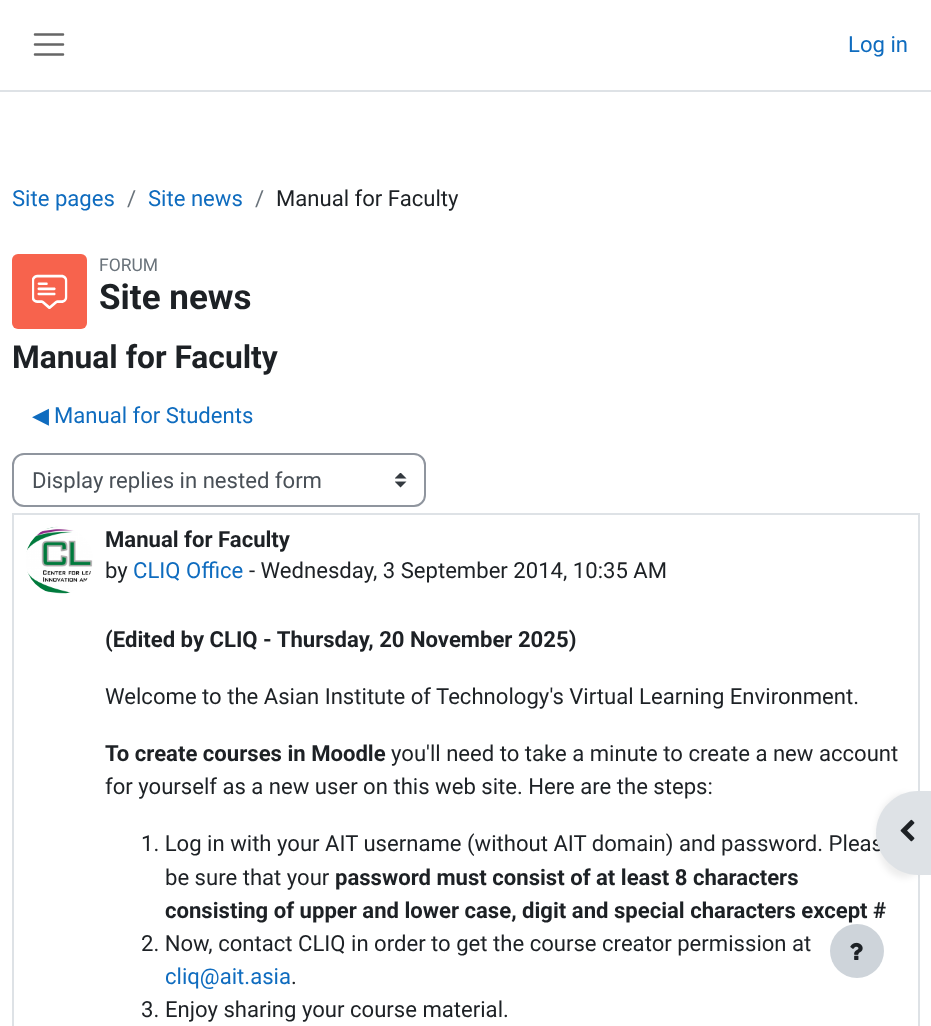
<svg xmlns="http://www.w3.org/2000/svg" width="931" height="1026">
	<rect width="100%" height="100%" fill="#FFFFFF" />
	<rect x="0" y="90" width="931" height="2" fill="#DEE2E6" />
	<path d="M35 34.5H63M35 44.5H63M35 54.5H63" fill="none" stroke="#666666" stroke-width="2.5" stroke-linecap="round" />
	<g font-family="Roboto" font-size="22.1" fill="#0F6CBF">
		<text x="848" y="52">Log in</text>
		<text x="12" y="206">Site pages</text>
	</g>
	<text x="127" y="206" font-family="Roboto" font-size="22.1" fill="#6A737B">/</text>
	<text x="148" y="206" font-family="Roboto" font-size="22.1" fill="#0F6CBF">Site news</text>
	<text x="255" y="206" font-family="Roboto" font-size="22.1" fill="#6A737B">/</text>
	<text x="276" y="206" font-family="Roboto" font-size="22.1" fill="#1D2125">Manual for Faculty</text>
	<rect x="12" y="254" width="75" height="75" rx="6" fill="#F7634D" />
	<image x="32" y="274" width="36" height="35" href="assets/img1.png" />
	<text x="99" y="271" font-family="Roboto" font-size="17.5" fill="#6A737B">FORUM</text>
	<text x="99" y="309" font-family="Roboto" font-size="35" font-weight="700" fill="#1D2125">Site news</text>
	<text x="12" y="368" font-family="Roboto" font-size="31.75" font-weight="700" fill="#1D2125">Manual for Faculty</text>
	<text x="32" y="423" font-family="DejaVu Sans" font-size="22.1" fill="#0F6CBF">◀︎</text>
	<text x="54" y="423" font-family="Roboto" font-size="22.1" fill="#0F6CBF">Manual for Students</text>
	<image x="395" y="473" width="12" height="15" href="assets/img2.png" />
	<rect x="13" y="454" width="412" height="52" rx="11" fill="none" stroke="#8F959E" stroke-width="2" />
	<text x="32" y="488" font-family="Roboto" font-size="22.1" fill="#495057">Display replies in nested form</text>
	<rect x="13" y="514" width="906" height="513" fill="none" stroke="#DEE2E6" stroke-width="2" />
	<image x="26" y="526" width="67" height="68" href="assets/img3.png" />
	<text x="105" y="547" font-family="Roboto" font-size="22.1" font-weight="700" fill="#1D2125">Manual for Faculty</text>
	<text x="105" y="578" font-family="Roboto" font-size="22.1" fill="#1D2125">by</text>
	<text x="133" y="578" font-family="Roboto" font-size="22.1" fill="#0F6CBF">CLIQ Office</text>
	<text x="249" y="578" font-family="Roboto" font-size="22.1" fill="#1D2125">- Wednesday, 3 September 2014, 10:35 AM</text>
	<text x="105" y="647" font-family="Roboto" font-size="22.1" font-weight="700" fill="#1D2125">(Edited by CLIQ - Thursday, 20 November 2025)</text>
	<text x="105" y="704" font-family="Roboto" font-size="22.1" fill="#1D2125">Welcome to the Asian Institute of Technology's Virtual Learning Environment.</text>
	<text x="105" y="761" font-family="Roboto" font-size="22.1" font-weight="700" fill="#1D2125">To create courses in Moodle</text>
	<g font-family="Roboto" font-size="22.1" fill="#1D2125">
		<text x="391" y="761">you'll need to take a minute to create a new account</text>
		<text x="105" y="794">for yourself as a new user on this web site. Here are the steps:</text>
		<text x="141" y="851">1. Log in with your AIT username (without AIT domain) and password. Pleas</text>
		<text x="165" y="885">be sure that your</text>
	</g>
	<g font-family="Roboto" font-size="22.1" font-weight="700" fill="#1D2125">
		<text x="335" y="885">password must consist of at least 8 characters</text>
		<text x="165" y="918">consisting of upper and lower case, digit and special characters except #</text>
	</g>
	<text x="141" y="951" font-family="Roboto" font-size="22.1" fill="#1D2125">2. Now, contact CLIQ in order to get the course creator permission at</text>
	<text x="165" y="984" font-family="Roboto" font-size="22.1" fill="#0F6CBF">cliq@ait.asia</text>
	<g font-family="Roboto" font-size="22.1" fill="#1D2125">
		<text x="291" y="984">.</text>
		<text x="141" y="1017">3.</text>
		<text x="165" y="1017">Enjoy sharing your course material.</text>
	</g>
	<rect x="876" y="794" width="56" height="84" rx="42" fill="#000000" fill-opacity="0.07" filter="blur(3px)" />
	<path d="M918 791H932V875H918C895 875 876 856 876 833C876 810 895 791 918 791Z" fill="#DEE2E6" />
	<image x="900" y="819" width="15" height="23" href="assets/img4.png" />
	<circle cx="857" cy="951" r="27" fill="#CED4DA" />
	<image x="850" y="942" width="13" height="18" href="assets/img5.png" />
</svg>
